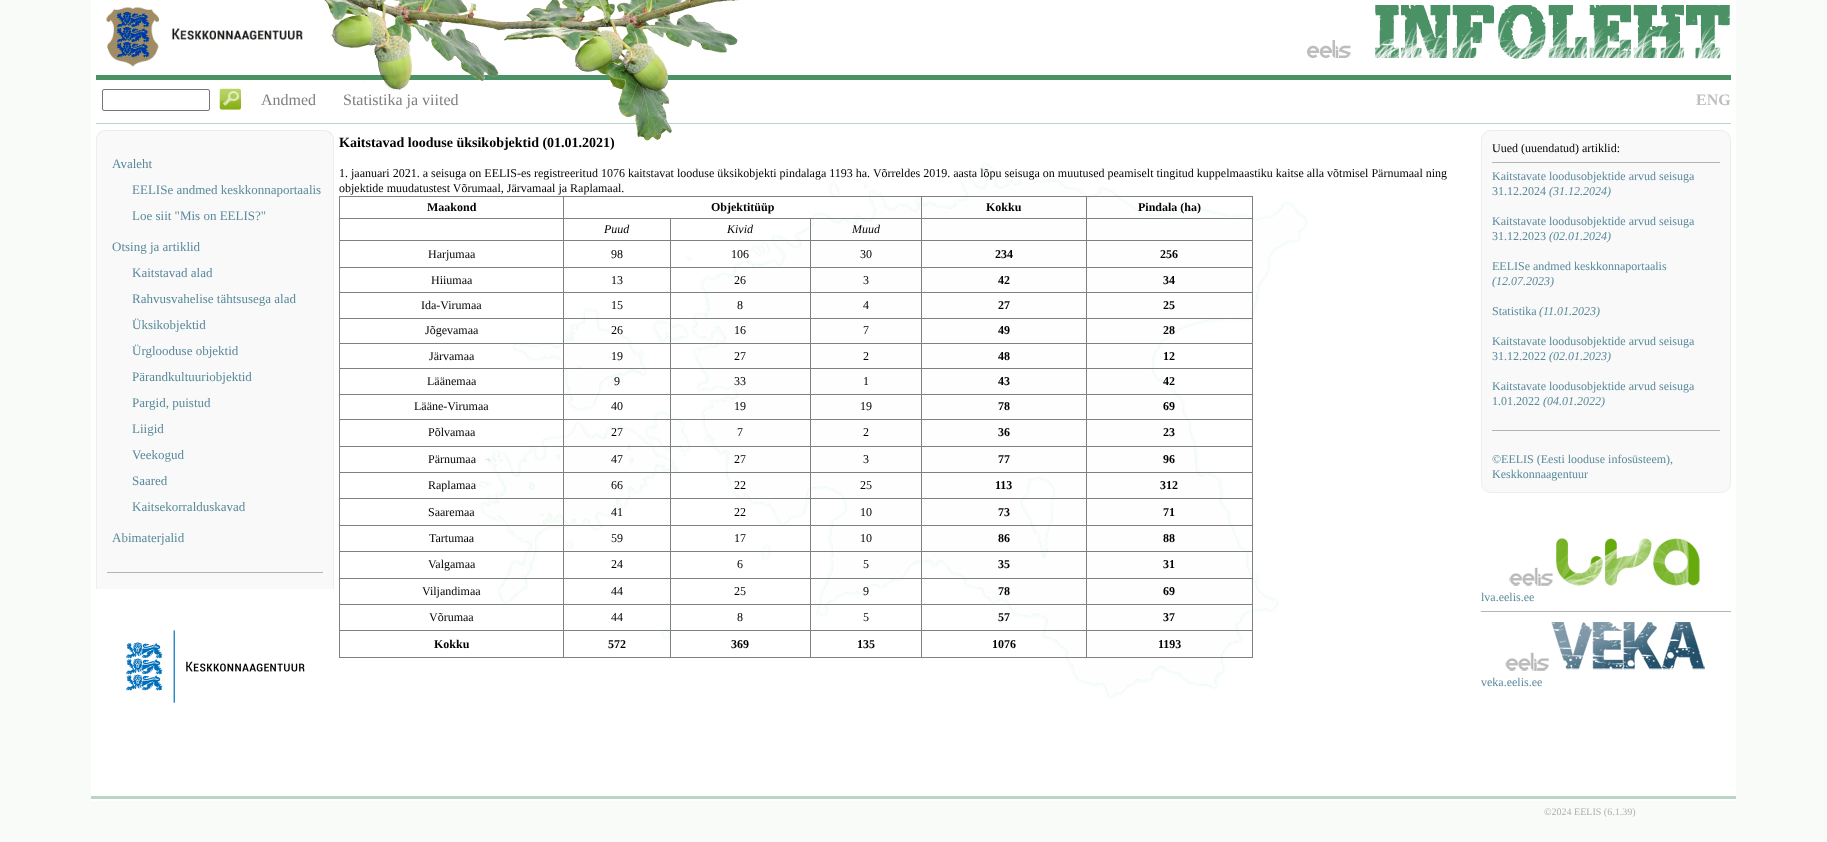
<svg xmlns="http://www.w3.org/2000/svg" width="1827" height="842">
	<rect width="100%" height="100%" fill="#F9FBF9" />
	<rect x="91" y="0" width="1645" height="796" fill="#FFFFFF" />
	<image x="479" y="162" width="829" height="537" href="assets/img1.png" />
	<image x="106" y="7" width="197" height="60" href="assets/img2.png" />
	<rect x="96" y="75" width="1635" height="5" fill="#4A9165" />
	<image x="324" y="0" width="232" height="91" href="assets/img3.png" />
	<rect x="96" y="123" width="1635" height="1" fill="#BAD5C4" />
	<text x="339" y="147" font-family="Liberation Serif" font-size="14" font-weight="700" fill="#000000">Kaitstavad looduse üksikobjektid (01.01.2021)</text>
	<image x="556" y="0" width="183" height="141" href="assets/img4.png" />
	<image x="1307" y="5" width="423" height="54" href="assets/img5.png" />
	<rect x="102.5" y="89.5" width="107" height="21" rx="1.5" fill="none" stroke="#767676" />
	<image x="219" y="88" width="22" height="22" href="assets/img6.png" />
	<g font-family="Liberation Serif" font-size="16" fill="#7F7F7F">
		<text x="261" y="105">Andmed</text>
		<text x="343" y="105">Statistika ja viited</text>
	</g>
	<text x="1696" y="105" font-family="Liberation Serif" font-size="16" font-weight="700" fill="#BFBFBF">ENG</text>
	<path d="M106 131H324C329 131 333 135 333 140V556H97V140C97 135 101 131 106 131Z" fill="#F9F9F9" />
	<path d="M106 130H324C330 130 334 134 334 140V556H96V140C96 134 100 130 106 130ZM106 131H324C329 131 333 135 333 140V556H97V140C97 135 101 131 106 131Z" fill="#EDEDED" fill-rule="evenodd" />
	<g font-family="Liberation Serif" font-size="13" fill="#598A9C">
		<text x="112" y="168">Avaleht</text>
		<text x="132" y="194">EELISe andmed keskkonnaportaalis</text>
		<text x="132" y="220">Loe siit "Mis on EELIS?"</text>
		<text x="112" y="251">Otsing ja artiklid</text>
		<text x="132" y="277">Kaitstavad alad</text>
		<text x="132" y="303">Rahvusvahelise tähtsusega alad</text>
		<text x="132" y="329">Üksikobjektid</text>
		<text x="132" y="355">Ürglooduse objektid</text>
		<text x="132" y="381">Pärandkultuuriobjektid</text>
		<text x="132" y="407">Pargid, puistud</text>
		<text x="132" y="433">Liigid</text>
		<text x="132" y="459">Veekogud</text>
		<text x="132" y="485">Saared</text>
		<text x="132" y="511">Kaitsekorralduskavad</text>
		<text x="112" y="542">Abimaterjalid</text>
	</g>
	<rect x="97" y="556" width="236" height="33" fill="#F9F9F9" />
	<rect x="333" y="556" width="1" height="33" fill="#EDEDED" />
	<rect x="96" y="556" width="1" height="33" fill="#EDEDED" />
	<rect x="107" y="572" width="216" height="1" fill="#B4B4B4" />
	<image x="126" y="630" width="179" height="73" href="assets/img7.png" />
	<g font-family="Liberation Serif" font-size="12" fill="#000000">
		<text x="339" y="177">1. jaanuari 2021. a seisuga on EELIS-es registreeritud 1076 kaitstavat looduse üksikobjekti pindalaga 1193 ha. Võrreldes 2019. aasta lõpu seisuga on muutused peamiselt tingitud kuppelmaastiku kaitse alla võtmisel Pärnumaal ning</text>
		<text x="339" y="192">objektide muudatustest Võrumaal, Järvamaal ja Raplamaal.</text>
	</g>
	<rect x="339" y="196" width="914" height="1" fill="#808080" />
	<rect x="1252" y="196" width="1" height="462" fill="#808080" />
	<rect x="339" y="657" width="914" height="1" fill="#808080" />
	<rect x="339" y="196" width="1" height="462" fill="#808080" />
	<text x="427" y="211" font-family="Liberation Serif" font-size="12" font-weight="700" fill="#000000">Maakond</text>
	<rect x="1086" y="218" width="167" height="1" fill="#808080" />
	<rect x="1086" y="240" width="167" height="1" fill="#808080" />
	<rect x="1086" y="267" width="167" height="1" fill="#808080" />
	<rect x="1086" y="292" width="167" height="1" fill="#808080" />
	<rect x="1086" y="318" width="167" height="1" fill="#808080" />
	<rect x="1086" y="343" width="167" height="1" fill="#808080" />
	<rect x="1086" y="368" width="167" height="1" fill="#808080" />
	<rect x="1086" y="394" width="167" height="1" fill="#808080" />
	<rect x="1086" y="419" width="167" height="1" fill="#808080" />
	<rect x="1086" y="446" width="167" height="1" fill="#808080" />
	<rect x="1086" y="472" width="167" height="1" fill="#808080" />
	<rect x="1086" y="498" width="167" height="1" fill="#808080" />
	<rect x="1086" y="525" width="167" height="1" fill="#808080" />
	<rect x="1086" y="551" width="167" height="1" fill="#808080" />
	<rect x="1086" y="578" width="167" height="1" fill="#808080" />
	<rect x="1086" y="604" width="167" height="1" fill="#808080" />
	<rect x="1086" y="630" width="167" height="1" fill="#808080" />
	<rect x="1086" y="630" width="1" height="28" fill="#808080" />
	<rect x="921" y="630" width="166" height="1" fill="#808080" />
	<rect x="1086" y="604" width="1" height="27" fill="#808080" />
	<rect x="921" y="604" width="166" height="1" fill="#808080" />
	<rect x="1086" y="578" width="1" height="27" fill="#808080" />
	<rect x="921" y="578" width="166" height="1" fill="#808080" />
	<rect x="1086" y="551" width="1" height="28" fill="#808080" />
	<rect x="921" y="551" width="166" height="1" fill="#808080" />
	<rect x="1086" y="525" width="1" height="27" fill="#808080" />
	<rect x="921" y="525" width="166" height="1" fill="#808080" />
	<rect x="1086" y="498" width="1" height="28" fill="#808080" />
	<rect x="921" y="498" width="166" height="1" fill="#808080" />
	<rect x="1086" y="472" width="1" height="27" fill="#808080" />
	<rect x="921" y="472" width="166" height="1" fill="#808080" />
	<rect x="1086" y="446" width="1" height="27" fill="#808080" />
	<rect x="921" y="446" width="166" height="1" fill="#808080" />
	<rect x="1086" y="419" width="1" height="28" fill="#808080" />
	<rect x="921" y="419" width="166" height="1" fill="#808080" />
	<rect x="1086" y="394" width="1" height="26" fill="#808080" />
	<rect x="921" y="394" width="166" height="1" fill="#808080" />
	<rect x="1086" y="368" width="1" height="27" fill="#808080" />
	<rect x="921" y="368" width="166" height="1" fill="#808080" />
	<rect x="1086" y="343" width="1" height="26" fill="#808080" />
	<rect x="921" y="343" width="166" height="1" fill="#808080" />
	<rect x="1086" y="318" width="1" height="26" fill="#808080" />
	<rect x="921" y="318" width="166" height="1" fill="#808080" />
	<rect x="1086" y="292" width="1" height="27" fill="#808080" />
	<rect x="921" y="292" width="166" height="1" fill="#808080" />
	<rect x="1086" y="267" width="1" height="26" fill="#808080" />
	<rect x="921" y="267" width="166" height="1" fill="#808080" />
	<rect x="1086" y="240" width="1" height="28" fill="#808080" />
	<rect x="921" y="240" width="166" height="1" fill="#808080" />
	<rect x="1086" y="218" width="1" height="23" fill="#808080" />
	<rect x="921" y="218" width="166" height="1" fill="#808080" />
	<rect x="921" y="630" width="1" height="28" fill="#808080" />
	<rect x="810" y="630" width="112" height="1" fill="#808080" />
	<rect x="921" y="604" width="1" height="27" fill="#808080" />
	<rect x="810" y="604" width="112" height="1" fill="#808080" />
	<rect x="921" y="578" width="1" height="27" fill="#808080" />
	<rect x="810" y="578" width="112" height="1" fill="#808080" />
	<rect x="921" y="551" width="1" height="28" fill="#808080" />
	<rect x="810" y="551" width="112" height="1" fill="#808080" />
	<rect x="921" y="525" width="1" height="27" fill="#808080" />
	<rect x="810" y="525" width="112" height="1" fill="#808080" />
	<rect x="921" y="498" width="1" height="28" fill="#808080" />
	<rect x="810" y="498" width="112" height="1" fill="#808080" />
	<rect x="921" y="472" width="1" height="27" fill="#808080" />
	<rect x="810" y="472" width="112" height="1" fill="#808080" />
	<rect x="921" y="446" width="1" height="27" fill="#808080" />
	<rect x="810" y="446" width="112" height="1" fill="#808080" />
	<rect x="921" y="419" width="1" height="28" fill="#808080" />
	<rect x="810" y="419" width="112" height="1" fill="#808080" />
	<rect x="921" y="394" width="1" height="26" fill="#808080" />
	<rect x="810" y="394" width="112" height="1" fill="#808080" />
	<rect x="921" y="368" width="1" height="27" fill="#808080" />
	<rect x="810" y="368" width="112" height="1" fill="#808080" />
	<rect x="921" y="343" width="1" height="26" fill="#808080" />
	<rect x="810" y="343" width="112" height="1" fill="#808080" />
	<rect x="921" y="318" width="1" height="26" fill="#808080" />
	<rect x="810" y="318" width="112" height="1" fill="#808080" />
	<rect x="921" y="292" width="1" height="27" fill="#808080" />
	<rect x="810" y="292" width="112" height="1" fill="#808080" />
	<rect x="921" y="267" width="1" height="26" fill="#808080" />
	<rect x="810" y="267" width="112" height="1" fill="#808080" />
	<rect x="921" y="240" width="1" height="28" fill="#808080" />
	<rect x="810" y="240" width="112" height="1" fill="#808080" />
	<rect x="921" y="218" width="1" height="23" fill="#808080" />
	<rect x="810" y="218" width="112" height="1" fill="#808080" />
	<rect x="810" y="630" width="1" height="28" fill="#808080" />
	<rect x="670" y="630" width="141" height="1" fill="#808080" />
	<rect x="810" y="604" width="1" height="27" fill="#808080" />
	<rect x="670" y="604" width="141" height="1" fill="#808080" />
	<rect x="810" y="578" width="1" height="27" fill="#808080" />
	<rect x="670" y="578" width="141" height="1" fill="#808080" />
	<rect x="810" y="551" width="1" height="28" fill="#808080" />
	<rect x="670" y="551" width="141" height="1" fill="#808080" />
	<rect x="810" y="525" width="1" height="27" fill="#808080" />
	<rect x="670" y="525" width="141" height="1" fill="#808080" />
	<rect x="810" y="498" width="1" height="28" fill="#808080" />
	<rect x="670" y="498" width="141" height="1" fill="#808080" />
	<rect x="810" y="472" width="1" height="27" fill="#808080" />
	<rect x="670" y="472" width="141" height="1" fill="#808080" />
	<rect x="810" y="446" width="1" height="27" fill="#808080" />
	<rect x="670" y="446" width="141" height="1" fill="#808080" />
	<rect x="810" y="419" width="1" height="28" fill="#808080" />
	<rect x="670" y="419" width="141" height="1" fill="#808080" />
	<rect x="810" y="394" width="1" height="26" fill="#808080" />
	<rect x="670" y="394" width="141" height="1" fill="#808080" />
	<rect x="810" y="368" width="1" height="27" fill="#808080" />
	<rect x="670" y="368" width="141" height="1" fill="#808080" />
	<rect x="810" y="343" width="1" height="26" fill="#808080" />
	<rect x="670" y="343" width="141" height="1" fill="#808080" />
	<rect x="810" y="318" width="1" height="26" fill="#808080" />
	<rect x="670" y="318" width="141" height="1" fill="#808080" />
	<rect x="810" y="292" width="1" height="27" fill="#808080" />
	<rect x="670" y="292" width="141" height="1" fill="#808080" />
	<rect x="810" y="267" width="1" height="26" fill="#808080" />
	<rect x="670" y="267" width="141" height="1" fill="#808080" />
	<rect x="810" y="240" width="1" height="28" fill="#808080" />
	<rect x="670" y="240" width="141" height="1" fill="#808080" />
	<rect x="810" y="218" width="1" height="23" fill="#808080" />
	<rect x="670" y="218" width="141" height="1" fill="#808080" />
	<rect x="670" y="630" width="1" height="28" fill="#808080" />
	<rect x="563" y="630" width="108" height="1" fill="#808080" />
	<rect x="670" y="604" width="1" height="27" fill="#808080" />
	<rect x="563" y="604" width="108" height="1" fill="#808080" />
	<rect x="670" y="578" width="1" height="27" fill="#808080" />
	<rect x="563" y="578" width="108" height="1" fill="#808080" />
	<rect x="670" y="551" width="1" height="28" fill="#808080" />
	<rect x="563" y="551" width="108" height="1" fill="#808080" />
	<rect x="670" y="525" width="1" height="27" fill="#808080" />
	<rect x="563" y="525" width="108" height="1" fill="#808080" />
	<rect x="670" y="498" width="1" height="28" fill="#808080" />
	<rect x="563" y="498" width="108" height="1" fill="#808080" />
	<rect x="670" y="472" width="1" height="27" fill="#808080" />
	<rect x="563" y="472" width="108" height="1" fill="#808080" />
	<rect x="670" y="446" width="1" height="27" fill="#808080" />
	<rect x="563" y="446" width="108" height="1" fill="#808080" />
	<rect x="670" y="419" width="1" height="28" fill="#808080" />
	<rect x="563" y="419" width="108" height="1" fill="#808080" />
	<rect x="670" y="394" width="1" height="26" fill="#808080" />
	<rect x="563" y="394" width="108" height="1" fill="#808080" />
	<rect x="670" y="368" width="1" height="27" fill="#808080" />
	<rect x="563" y="368" width="108" height="1" fill="#808080" />
	<rect x="670" y="343" width="1" height="26" fill="#808080" />
	<rect x="563" y="343" width="108" height="1" fill="#808080" />
	<rect x="670" y="318" width="1" height="26" fill="#808080" />
	<rect x="563" y="318" width="108" height="1" fill="#808080" />
	<rect x="670" y="292" width="1" height="27" fill="#808080" />
	<rect x="563" y="292" width="108" height="1" fill="#808080" />
	<rect x="670" y="267" width="1" height="26" fill="#808080" />
	<rect x="563" y="267" width="108" height="1" fill="#808080" />
	<rect x="670" y="240" width="1" height="28" fill="#808080" />
	<rect x="563" y="240" width="108" height="1" fill="#808080" />
	<rect x="670" y="218" width="1" height="23" fill="#808080" />
	<rect x="563" y="218" width="108" height="1" fill="#808080" />
	<rect x="563" y="630" width="1" height="28" fill="#808080" />
	<rect x="339" y="630" width="225" height="1" fill="#808080" />
	<rect x="563" y="604" width="1" height="27" fill="#808080" />
	<rect x="339" y="604" width="225" height="1" fill="#808080" />
	<rect x="563" y="578" width="1" height="27" fill="#808080" />
	<rect x="339" y="578" width="225" height="1" fill="#808080" />
	<rect x="563" y="551" width="1" height="28" fill="#808080" />
	<rect x="339" y="551" width="225" height="1" fill="#808080" />
	<rect x="563" y="525" width="1" height="27" fill="#808080" />
	<rect x="339" y="525" width="225" height="1" fill="#808080" />
	<rect x="563" y="498" width="1" height="28" fill="#808080" />
	<rect x="339" y="498" width="225" height="1" fill="#808080" />
	<rect x="563" y="472" width="1" height="27" fill="#808080" />
	<rect x="339" y="472" width="225" height="1" fill="#808080" />
	<rect x="563" y="446" width="1" height="27" fill="#808080" />
	<rect x="339" y="446" width="225" height="1" fill="#808080" />
	<rect x="563" y="419" width="1" height="28" fill="#808080" />
	<rect x="339" y="419" width="225" height="1" fill="#808080" />
	<rect x="563" y="394" width="1" height="26" fill="#808080" />
	<rect x="339" y="394" width="225" height="1" fill="#808080" />
	<rect x="563" y="368" width="1" height="27" fill="#808080" />
	<rect x="339" y="368" width="225" height="1" fill="#808080" />
	<rect x="563" y="343" width="1" height="26" fill="#808080" />
	<rect x="339" y="343" width="225" height="1" fill="#808080" />
	<rect x="563" y="318" width="1" height="26" fill="#808080" />
	<rect x="339" y="318" width="225" height="1" fill="#808080" />
	<rect x="563" y="292" width="1" height="27" fill="#808080" />
	<rect x="339" y="292" width="225" height="1" fill="#808080" />
	<rect x="563" y="267" width="1" height="26" fill="#808080" />
	<rect x="339" y="267" width="225" height="1" fill="#808080" />
	<rect x="563" y="240" width="1" height="28" fill="#808080" />
	<rect x="339" y="240" width="225" height="1" fill="#808080" />
	<rect x="563" y="218" width="1" height="23" fill="#808080" />
	<rect x="339" y="218" width="225" height="1" fill="#808080" />
	<rect x="563" y="196" width="1" height="23" fill="#808080" />
	<text x="711" y="211" font-family="Liberation Serif" font-size="12" font-weight="700" fill="#000000">Objektitüüp</text>
	<rect x="921" y="196" width="1" height="23" fill="#808080" />
	<text x="986" y="211" font-family="Liberation Serif" font-size="12" font-weight="700" fill="#000000">Kokku</text>
	<rect x="1086" y="196" width="1" height="23" fill="#808080" />
	<text x="1138" y="211" font-family="Liberation Serif" font-size="12" font-weight="700" fill="#000000">Pindala (ha)</text>
	<g font-family="Liberation Serif" font-size="12" font-style="italic" fill="#000000">
		<text x="604" y="233">Puud</text>
		<text x="727" y="233">Kivid</text>
		<text x="852" y="233">Muud</text>
	</g>
	<g font-family="Liberation Serif" font-size="12" fill="#000000">
		<text x="428" y="258">Harjumaa</text>
		<text x="611" y="258">98</text>
		<text x="731" y="258">106</text>
		<text x="860" y="258">30</text>
	</g>
	<g font-family="Liberation Serif" font-size="12" font-weight="700" fill="#000000">
		<text x="995" y="258">234</text>
		<text x="1160" y="258">256</text>
	</g>
	<g font-family="Liberation Serif" font-size="12" fill="#000000">
		<text x="431" y="284">Hiiumaa</text>
		<text x="611" y="284">13</text>
		<text x="734" y="284">26</text>
		<text x="863" y="284">3</text>
	</g>
	<g font-family="Liberation Serif" font-size="12" font-weight="700" fill="#000000">
		<text x="998" y="284">42</text>
		<text x="1163" y="284">34</text>
	</g>
	<g font-family="Liberation Serif" font-size="12" fill="#000000">
		<text x="421" y="309">Ida-Virumaa</text>
		<text x="611" y="309">15</text>
		<text x="737" y="309">8</text>
		<text x="863" y="309">4</text>
	</g>
	<g font-family="Liberation Serif" font-size="12" font-weight="700" fill="#000000">
		<text x="998" y="309">27</text>
		<text x="1163" y="309">25</text>
	</g>
	<g font-family="Liberation Serif" font-size="12" fill="#000000">
		<text x="425" y="334">Jõgevamaa</text>
		<text x="611" y="334">26</text>
		<text x="734" y="334">16</text>
		<text x="863" y="334">7</text>
	</g>
	<g font-family="Liberation Serif" font-size="12" font-weight="700" fill="#000000">
		<text x="998" y="334">49</text>
		<text x="1163" y="334">28</text>
	</g>
	<g font-family="Liberation Serif" font-size="12" fill="#000000">
		<text x="429" y="360">Järvamaa</text>
		<text x="611" y="360">19</text>
		<text x="734" y="360">27</text>
		<text x="863" y="360">2</text>
	</g>
	<g font-family="Liberation Serif" font-size="12" font-weight="700" fill="#000000">
		<text x="998" y="360">48</text>
		<text x="1163" y="360">12</text>
	</g>
	<g font-family="Liberation Serif" font-size="12" fill="#000000">
		<text x="427" y="385">Läänemaa</text>
		<text x="614" y="385">9</text>
		<text x="734" y="385">33</text>
		<text x="863" y="385">1</text>
	</g>
	<g font-family="Liberation Serif" font-size="12" font-weight="700" fill="#000000">
		<text x="998" y="385">43</text>
		<text x="1163" y="385">42</text>
	</g>
	<g font-family="Liberation Serif" font-size="12" fill="#000000">
		<text x="414" y="410">Lääne-Virumaa</text>
		<text x="611" y="410">40</text>
		<text x="734" y="410">19</text>
		<text x="860" y="410">19</text>
	</g>
	<g font-family="Liberation Serif" font-size="12" font-weight="700" fill="#000000">
		<text x="998" y="410">78</text>
		<text x="1163" y="410">69</text>
	</g>
	<g font-family="Liberation Serif" font-size="12" fill="#000000">
		<text x="428" y="436">Põlvamaa</text>
		<text x="611" y="436">27</text>
		<text x="737" y="436">7</text>
		<text x="863" y="436">2</text>
	</g>
	<g font-family="Liberation Serif" font-size="12" font-weight="700" fill="#000000">
		<text x="998" y="436">36</text>
		<text x="1163" y="436">23</text>
	</g>
	<g font-family="Liberation Serif" font-size="12" fill="#000000">
		<text x="428" y="463">Pärnumaa</text>
		<text x="611" y="463">47</text>
		<text x="734" y="463">27</text>
		<text x="863" y="463">3</text>
	</g>
	<g font-family="Liberation Serif" font-size="12" font-weight="700" fill="#000000">
		<text x="998" y="463">77</text>
		<text x="1163" y="463">96</text>
	</g>
	<g font-family="Liberation Serif" font-size="12" fill="#000000">
		<text x="428" y="489">Raplamaa</text>
		<text x="611" y="489">66</text>
		<text x="734" y="489">22</text>
		<text x="860" y="489">25</text>
	</g>
	<g font-family="Liberation Serif" font-size="12" font-weight="700" fill="#000000">
		<text x="995" y="489">113</text>
		<text x="1160" y="489">312</text>
	</g>
	<g font-family="Liberation Serif" font-size="12" fill="#000000">
		<text x="428" y="516">Saaremaa</text>
		<text x="611" y="516">41</text>
		<text x="734" y="516">22</text>
		<text x="860" y="516">10</text>
	</g>
	<g font-family="Liberation Serif" font-size="12" font-weight="700" fill="#000000">
		<text x="998" y="516">73</text>
		<text x="1163" y="516">71</text>
	</g>
	<g font-family="Liberation Serif" font-size="12" fill="#000000">
		<text x="429" y="542">Tartumaa</text>
		<text x="611" y="542">59</text>
		<text x="734" y="542">17</text>
		<text x="860" y="542">10</text>
	</g>
	<g font-family="Liberation Serif" font-size="12" font-weight="700" fill="#000000">
		<text x="998" y="542">86</text>
		<text x="1163" y="542">88</text>
	</g>
	<g font-family="Liberation Serif" font-size="12" fill="#000000">
		<text x="428" y="568">Valgamaa</text>
		<text x="611" y="568">24</text>
		<text x="737" y="568">6</text>
		<text x="863" y="568">5</text>
	</g>
	<g font-family="Liberation Serif" font-size="12" font-weight="700" fill="#000000">
		<text x="998" y="568">35</text>
		<text x="1163" y="568">31</text>
	</g>
	<g font-family="Liberation Serif" font-size="12" fill="#000000">
		<text x="422" y="595">Viljandimaa</text>
		<text x="611" y="595">44</text>
		<text x="734" y="595">25</text>
		<text x="863" y="595">9</text>
	</g>
	<g font-family="Liberation Serif" font-size="12" font-weight="700" fill="#000000">
		<text x="998" y="595">78</text>
		<text x="1163" y="595">69</text>
	</g>
	<g font-family="Liberation Serif" font-size="12" fill="#000000">
		<text x="429" y="621">Võrumaa</text>
		<text x="611" y="621">44</text>
		<text x="737" y="621">8</text>
		<text x="863" y="621">5</text>
	</g>
	<g font-family="Liberation Serif" font-size="12" font-weight="700" fill="#000000">
		<text x="998" y="621">57</text>
		<text x="1163" y="621">37</text>
		<text x="434" y="648">Kokku</text>
		<text x="608" y="648">572</text>
		<text x="731" y="648">369</text>
		<text x="857" y="648">135</text>
		<text x="992" y="648">1076</text>
		<text x="1158" y="648">1193</text>
	</g>
	<rect x="1481.5" y="130.5" width="249" height="362" rx="9.5" fill="#F9F9F9" stroke="#EDEDED" />
	<text x="1492" y="152" font-family="Liberation Serif" font-size="12" fill="#000000">Uued (uuendatud) artiklid:</text>
	<rect x="1492" y="162" width="228" height="1" fill="#B4B4B4" />
	<g font-family="Liberation Serif" font-size="12" fill="#598A9C">
		<text x="1492" y="180">Kaitstavate loodusobjektide arvud seisuga</text>
		<text x="1492" y="195">31.12.2024</text>
	</g>
	<text x="1549" y="195" font-family="Liberation Serif" font-size="12" font-style="italic" fill="#598A9C">(31.12.2024)</text>
	<g font-family="Liberation Serif" font-size="12" fill="#598A9C">
		<text x="1492" y="225">Kaitstavate loodusobjektide arvud seisuga</text>
		<text x="1492" y="240">31.12.2023</text>
	</g>
	<text x="1549" y="240" font-family="Liberation Serif" font-size="12" font-style="italic" fill="#598A9C">(02.01.2024)</text>
	<text x="1492" y="270" font-family="Liberation Serif" font-size="12" fill="#598A9C">EELISe andmed keskkonnaportaalis</text>
	<text x="1492" y="285" font-family="Liberation Serif" font-size="12" font-style="italic" fill="#598A9C">(12.07.2023)</text>
	<text x="1492" y="315" font-family="Liberation Serif" font-size="12" fill="#598A9C">Statistika</text>
	<text x="1539" y="315" font-family="Liberation Serif" font-size="12" font-style="italic" fill="#598A9C">(11.01.2023)</text>
	<g font-family="Liberation Serif" font-size="12" fill="#598A9C">
		<text x="1492" y="345">Kaitstavate loodusobjektide arvud seisuga</text>
		<text x="1492" y="360">31.12.2022</text>
	</g>
	<text x="1549" y="360" font-family="Liberation Serif" font-size="12" font-style="italic" fill="#598A9C">(02.01.2023)</text>
	<g font-family="Liberation Serif" font-size="12" fill="#598A9C">
		<text x="1492" y="390">Kaitstavate loodusobjektide arvud seisuga</text>
		<text x="1492" y="405">1.01.2022</text>
	</g>
	<text x="1543" y="405" font-family="Liberation Serif" font-size="12" font-style="italic" fill="#598A9C">(04.01.2022)</text>
	<rect x="1492" y="430" width="228" height="1" fill="#B4B4B4" />
	<g font-family="Liberation Serif" font-size="12" fill="#598A9C">
		<text x="1492" y="463">©EELIS (Eesti looduse infosüsteem),</text>
		<text x="1492" y="478">Keskkonnaagentuur</text>
	</g>
	<image x="1509" y="538" width="191" height="48" href="assets/img8.png" />
	<text x="1481" y="601" font-family="Liberation Serif" font-size="12" fill="#598A9C">lva.eelis.ee</text>
	<rect x="1481" y="611" width="250" height="1" fill="#B4B4B4" />
	<image x="1505" y="622" width="200" height="49" href="assets/img9.png" />
	<text x="1481" y="686" font-family="Liberation Serif" font-size="12" fill="#598A9C">veka.eelis.ee</text>
	<image x="91" y="796" width="1645" height="5" href="assets/img10.png" />
	<text x="1544" y="815" font-family="Liberation Serif" font-size="10" fill="#AEAEAE">©2024 EELIS (6.1.39)</text>
</svg>
